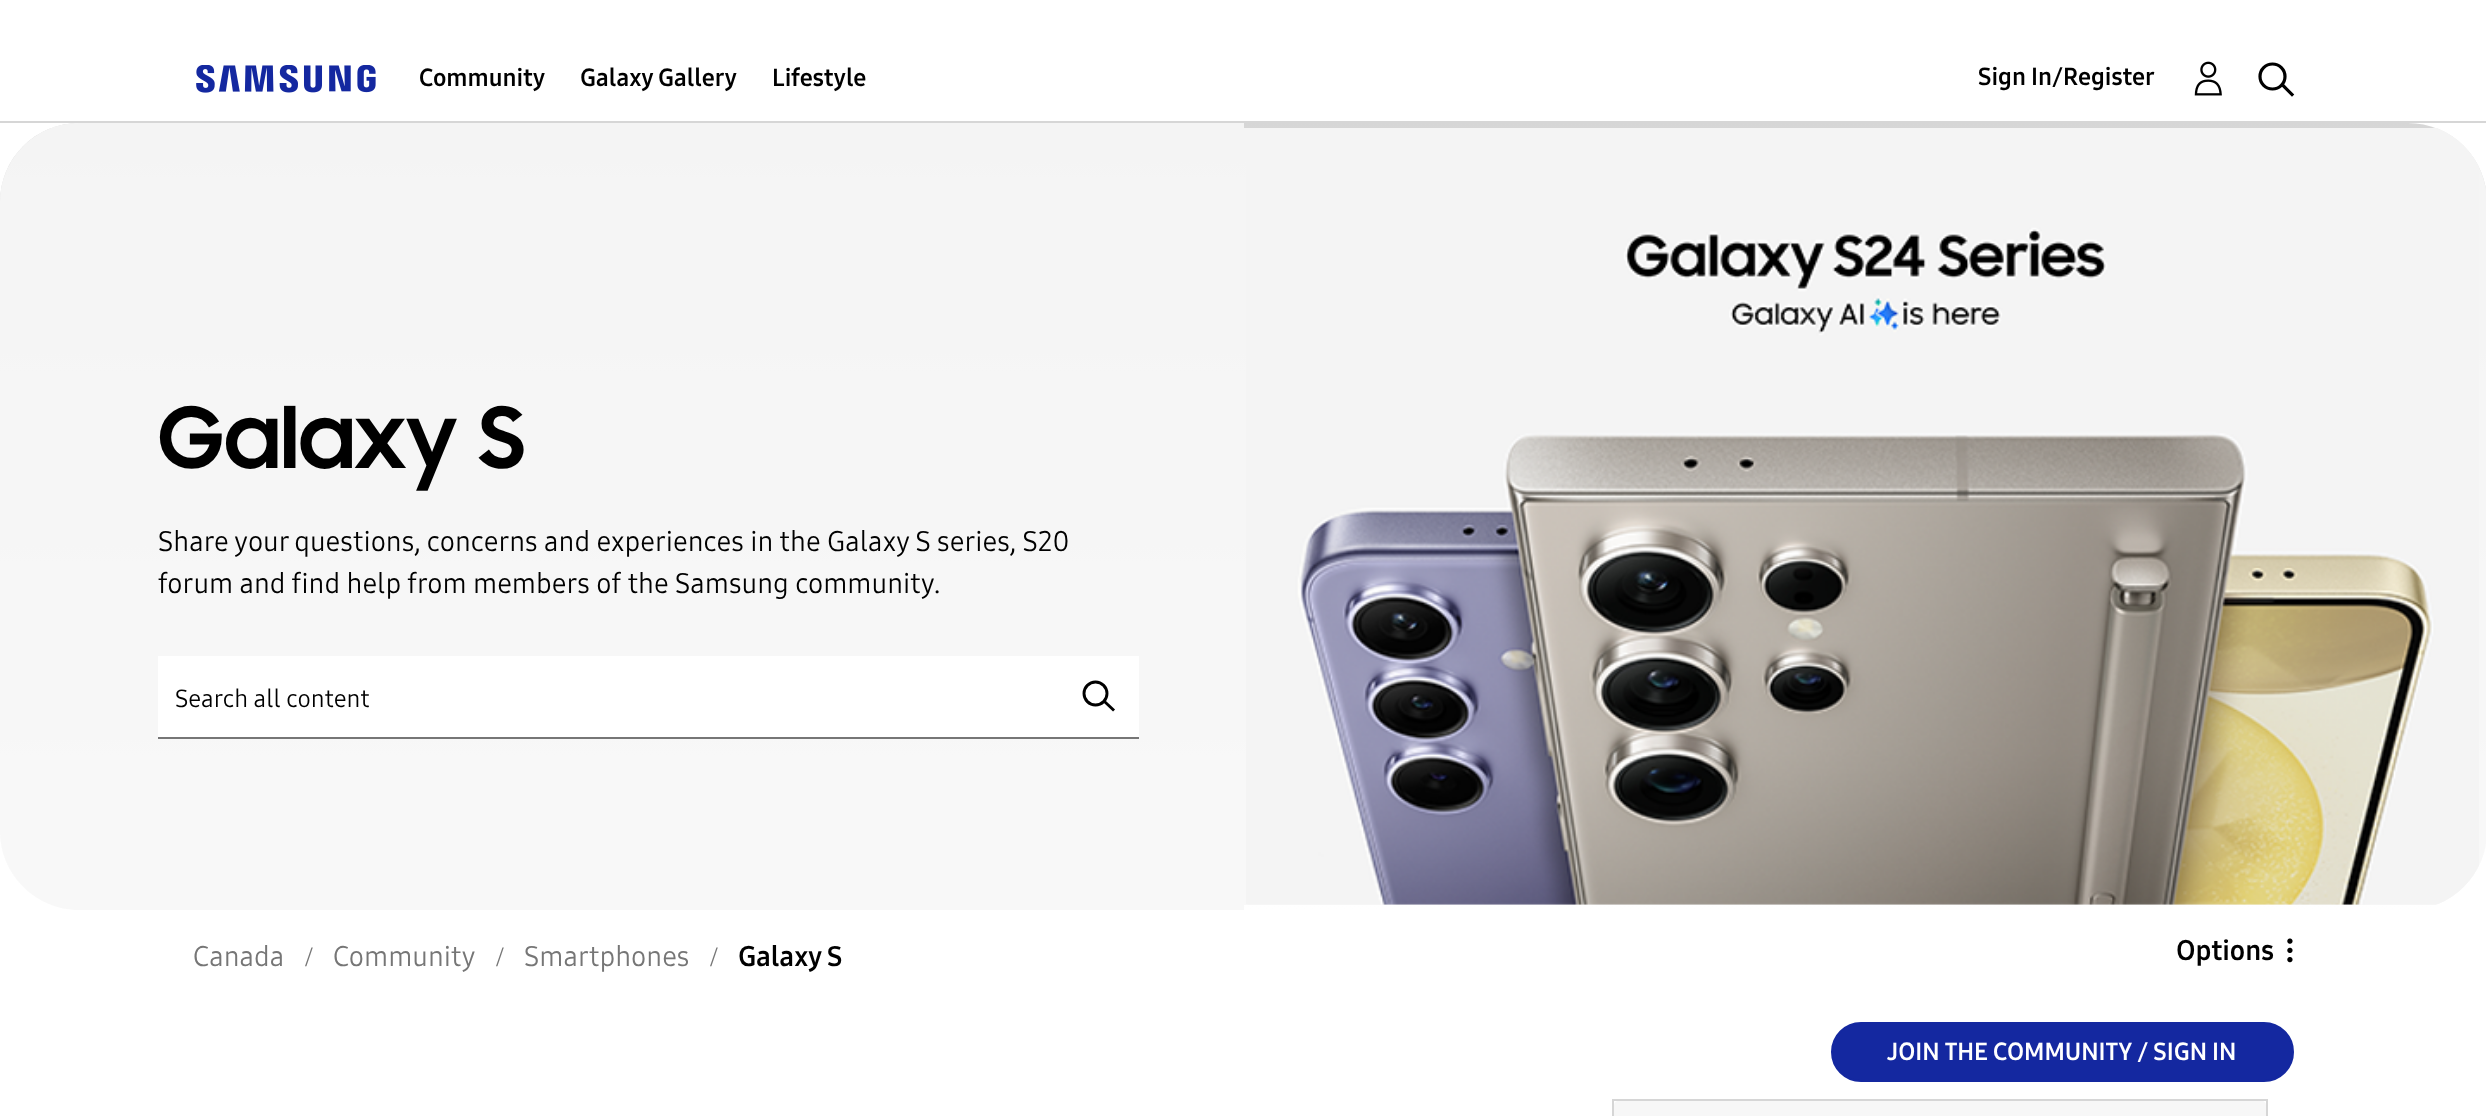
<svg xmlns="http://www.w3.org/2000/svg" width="2486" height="1116">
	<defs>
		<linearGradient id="g1" gradientUnits="userSpaceOnUse" x1="1243" y1="122" x2="1243" y2="910"><stop offset="0" stop-color="#D6D6D6" /><stop offset="1" stop-color="#FFFFFF" /></linearGradient>
		<clipPath id="clip1"><rect x="0" y="123" width="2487" height="787" rx="79" /></clipPath>
	</defs>
	<rect width="100%" height="100%" fill="#FFFFFF" />
	<rect x="0" y="121" width="2486" height="2" fill="#D6D6D6" />
	<image x="196" y="65" width="180" height="28" href="assets/img1.png" />
	<g font-family="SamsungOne" font-size="24.5" font-weight="700" fill="#000000">
		<text x="419" y="86">Community</text>
		<text x="580" y="86">Galaxy Gallery</text>
		<text x="772" y="86">Lifestyle</text>
		<text x="1978" y="85">Sign In/Register</text>
	</g>
	<image x="2194" y="61" width="28" height="35" href="assets/img2.png" />
	<circle cx="2272.5" cy="76.5" r="12.5" fill="none" stroke="#000000" stroke-width="3.2" />
	<path d="M2283.5 86L2292 94.5" fill="none" stroke="#000000" stroke-width="3.2" stroke-linecap="square" />
	<rect x="0" y="123" width="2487" height="787" rx="79" fill="url(#g1)" />
	<path d="M79 123H1244V910H79C35.5 910 0 874.5 0 831V202C0 158.5 35.5 123 79 123Z" fill="#F7F7F7" fill-opacity="0.9" />
	<text x="158" y="468" font-family="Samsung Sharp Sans" font-size="84" font-weight="700" fill="#000000">Galaxy S</text>
	<g font-family="SamsungOne" font-size="28" fill="#000000">
		<text x="158" y="551">Share your questions, concerns and experiences in the Galaxy S series, S20</text>
		<text x="158" y="593">forum and find help from members of the Samsung community.</text>
	</g>
	<rect x="158" y="656" width="981" height="81" fill="#FFFFFF" />
	<rect x="158" y="737" width="981" height="2" fill="#767676" />
	<text x="175" y="707" font-family="SamsungOne" font-size="24.5" fill="#000000">Search all content</text>
	<circle cx="1095.5" cy="693.5" r="11.5" fill="none" stroke="#000000" stroke-width="2.9" />
	<path d="M1105.5 702.5L1113 709.5" fill="none" stroke="#000000" stroke-width="2.9" stroke-linecap="square" />
	<g clip-path="url(#clip1)">
		<rect x="1244" y="128" width="1242" height="777" fill="#F7F7F7" fill-opacity="0.9" />
	</g>
	<image x="1246" y="128" width="1233" height="777" href="assets/img3.png" />
	<text x="193" y="966" font-family="SamsungOne" font-size="28" fill="#767676">Canada</text>
	<text x="305" y="966" font-family="Liberation Serif" font-size="28" fill="#767676">/</text>
	<text x="333" y="966" font-family="SamsungOne" font-size="28" fill="#767676">Community</text>
	<text x="496" y="966" font-family="Liberation Serif" font-size="28" fill="#767676">/</text>
	<text x="524" y="966" font-family="SamsungOne" font-size="28" fill="#767676">Smartphones</text>
	<text x="710" y="966" font-family="Liberation Serif" font-size="28" fill="#767676">/</text>
	<g font-family="SamsungOne" font-size="28" font-weight="700" fill="#000000">
		<text x="738" y="966">Galaxy S</text>
		<text x="2176" y="960">Options</text>
	</g>
	<image x="2287" y="938" width="6" height="25" href="assets/img4.png" />
	<rect x="1832" y="1023" width="461" height="58" rx="29" fill="#1428A0" stroke="#1428A0" stroke-width="2" />
	<text x="1887" y="1060" font-family="SamsungOne" font-size="24.5" font-weight="700" fill="#FFFFFF">JOIN THE COMMUNITY / SIGN IN</text>
	<rect x="1613" y="1100" width="654" height="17" fill="none" stroke="#D6D6D6" stroke-width="2" />
	<path d="M1618 1101H2262C2264 1101 2266 1103 2266 1105V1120H1614V1105C1614 1103 1616 1101 1618 1101Z" fill="#F7F7F7" />
</svg>
